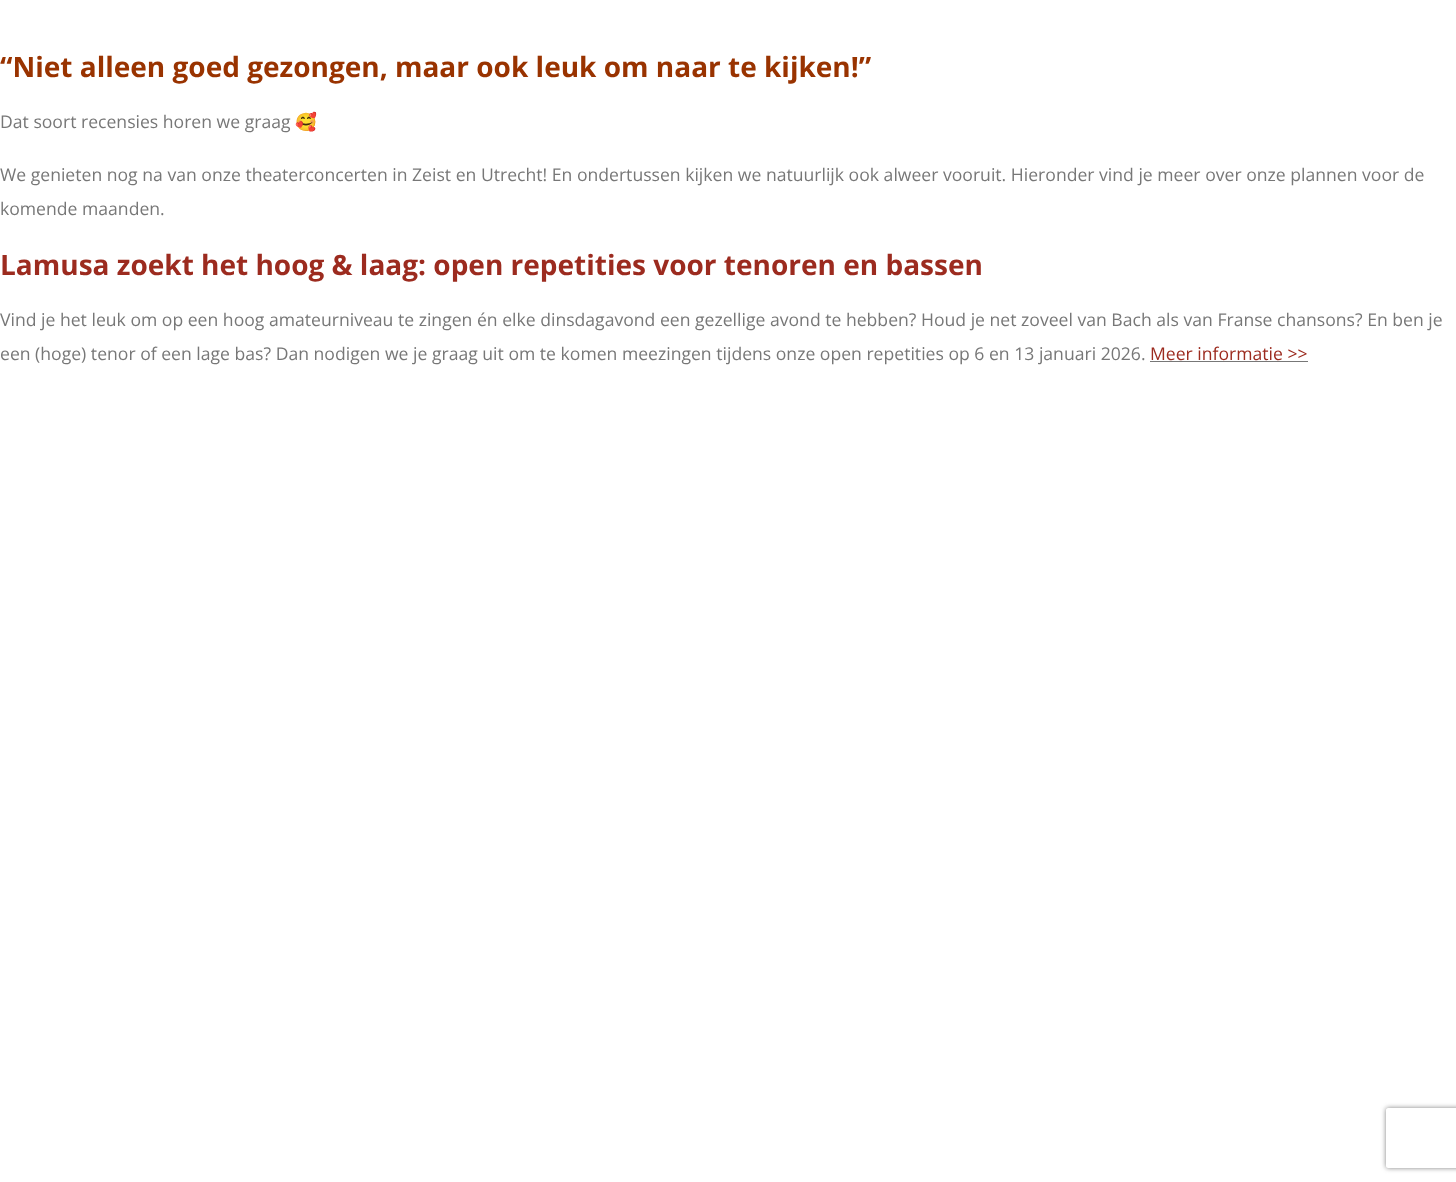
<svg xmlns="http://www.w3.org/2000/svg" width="1456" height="1182">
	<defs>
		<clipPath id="clip1"><path d="M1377 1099H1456V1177H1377ZM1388 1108H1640C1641 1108 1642 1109 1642 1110V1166C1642 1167 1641 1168 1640 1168H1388C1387 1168 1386 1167 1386 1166V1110C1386 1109 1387 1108 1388 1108Z" clip-rule="evenodd" /></clipPath>
	</defs>
	<rect width="100%" height="100%" fill="#FFFFFF" />
	<text x="0" y="77" font-family="Open Sans" font-size="28" font-weight="700" fill="#993300">“Niet alleen goed gezongen, maar ook leuk om naar te kijken!”</text>
	<text x="0" y="128" font-family="Open Sans" font-size="17.6" fill="#777777">Dat soort recensies horen we graag</text>
	<text x="295" y="128" font-family="Noto Color Emoji" font-size="17.6" fill="#777777">🥰</text>
	<g font-family="Open Sans" font-size="17.6" fill="#777777">
		<text x="0" y="181">We genieten nog na van onze theaterconcerten in Zeist en Utrecht! En ondertussen kijken we natuurlijk ook alweer vooruit. Hieronder vind je meer over onze plannen voor de</text>
		<text x="0" y="215">komende maanden.</text>
	</g>
	<text x="0" y="275" font-family="Open Sans" font-size="28" font-weight="700" fill="#9C2B1F">Lamusa zoekt het hoog &amp; laag: open repetities voor tenoren en bassen</text>
	<g font-family="Open Sans" font-size="17.6" fill="#777777">
		<text x="0" y="326">Vind je het leuk om op een hoog amateurniveau te zingen én elke dinsdagavond een gezellige avond te hebben? Houd je net zoveel van Bach als van Franse chansons? En ben je</text>
		<text x="0" y="360">een (hoge) tenor of een lage bas? Dan nodigen we je graag uit om te komen meezingen tijdens onze open repetities op 6 en 13 januari 2026.</text>
	</g>
	<text x="1150" y="360" font-family="Open Sans" font-size="17.6" fill="#9C2B1F">Meer informatie &gt;&gt;</text>
	<rect x="1150" y="361" width="158" height="1" fill="#777777" />
	<g clip-path="url(#clip1)">
		<rect x="1386" y="1108" width="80" height="60" rx="2" fill="#808080" filter="blur(2.5px)" />
	</g>
</svg>
